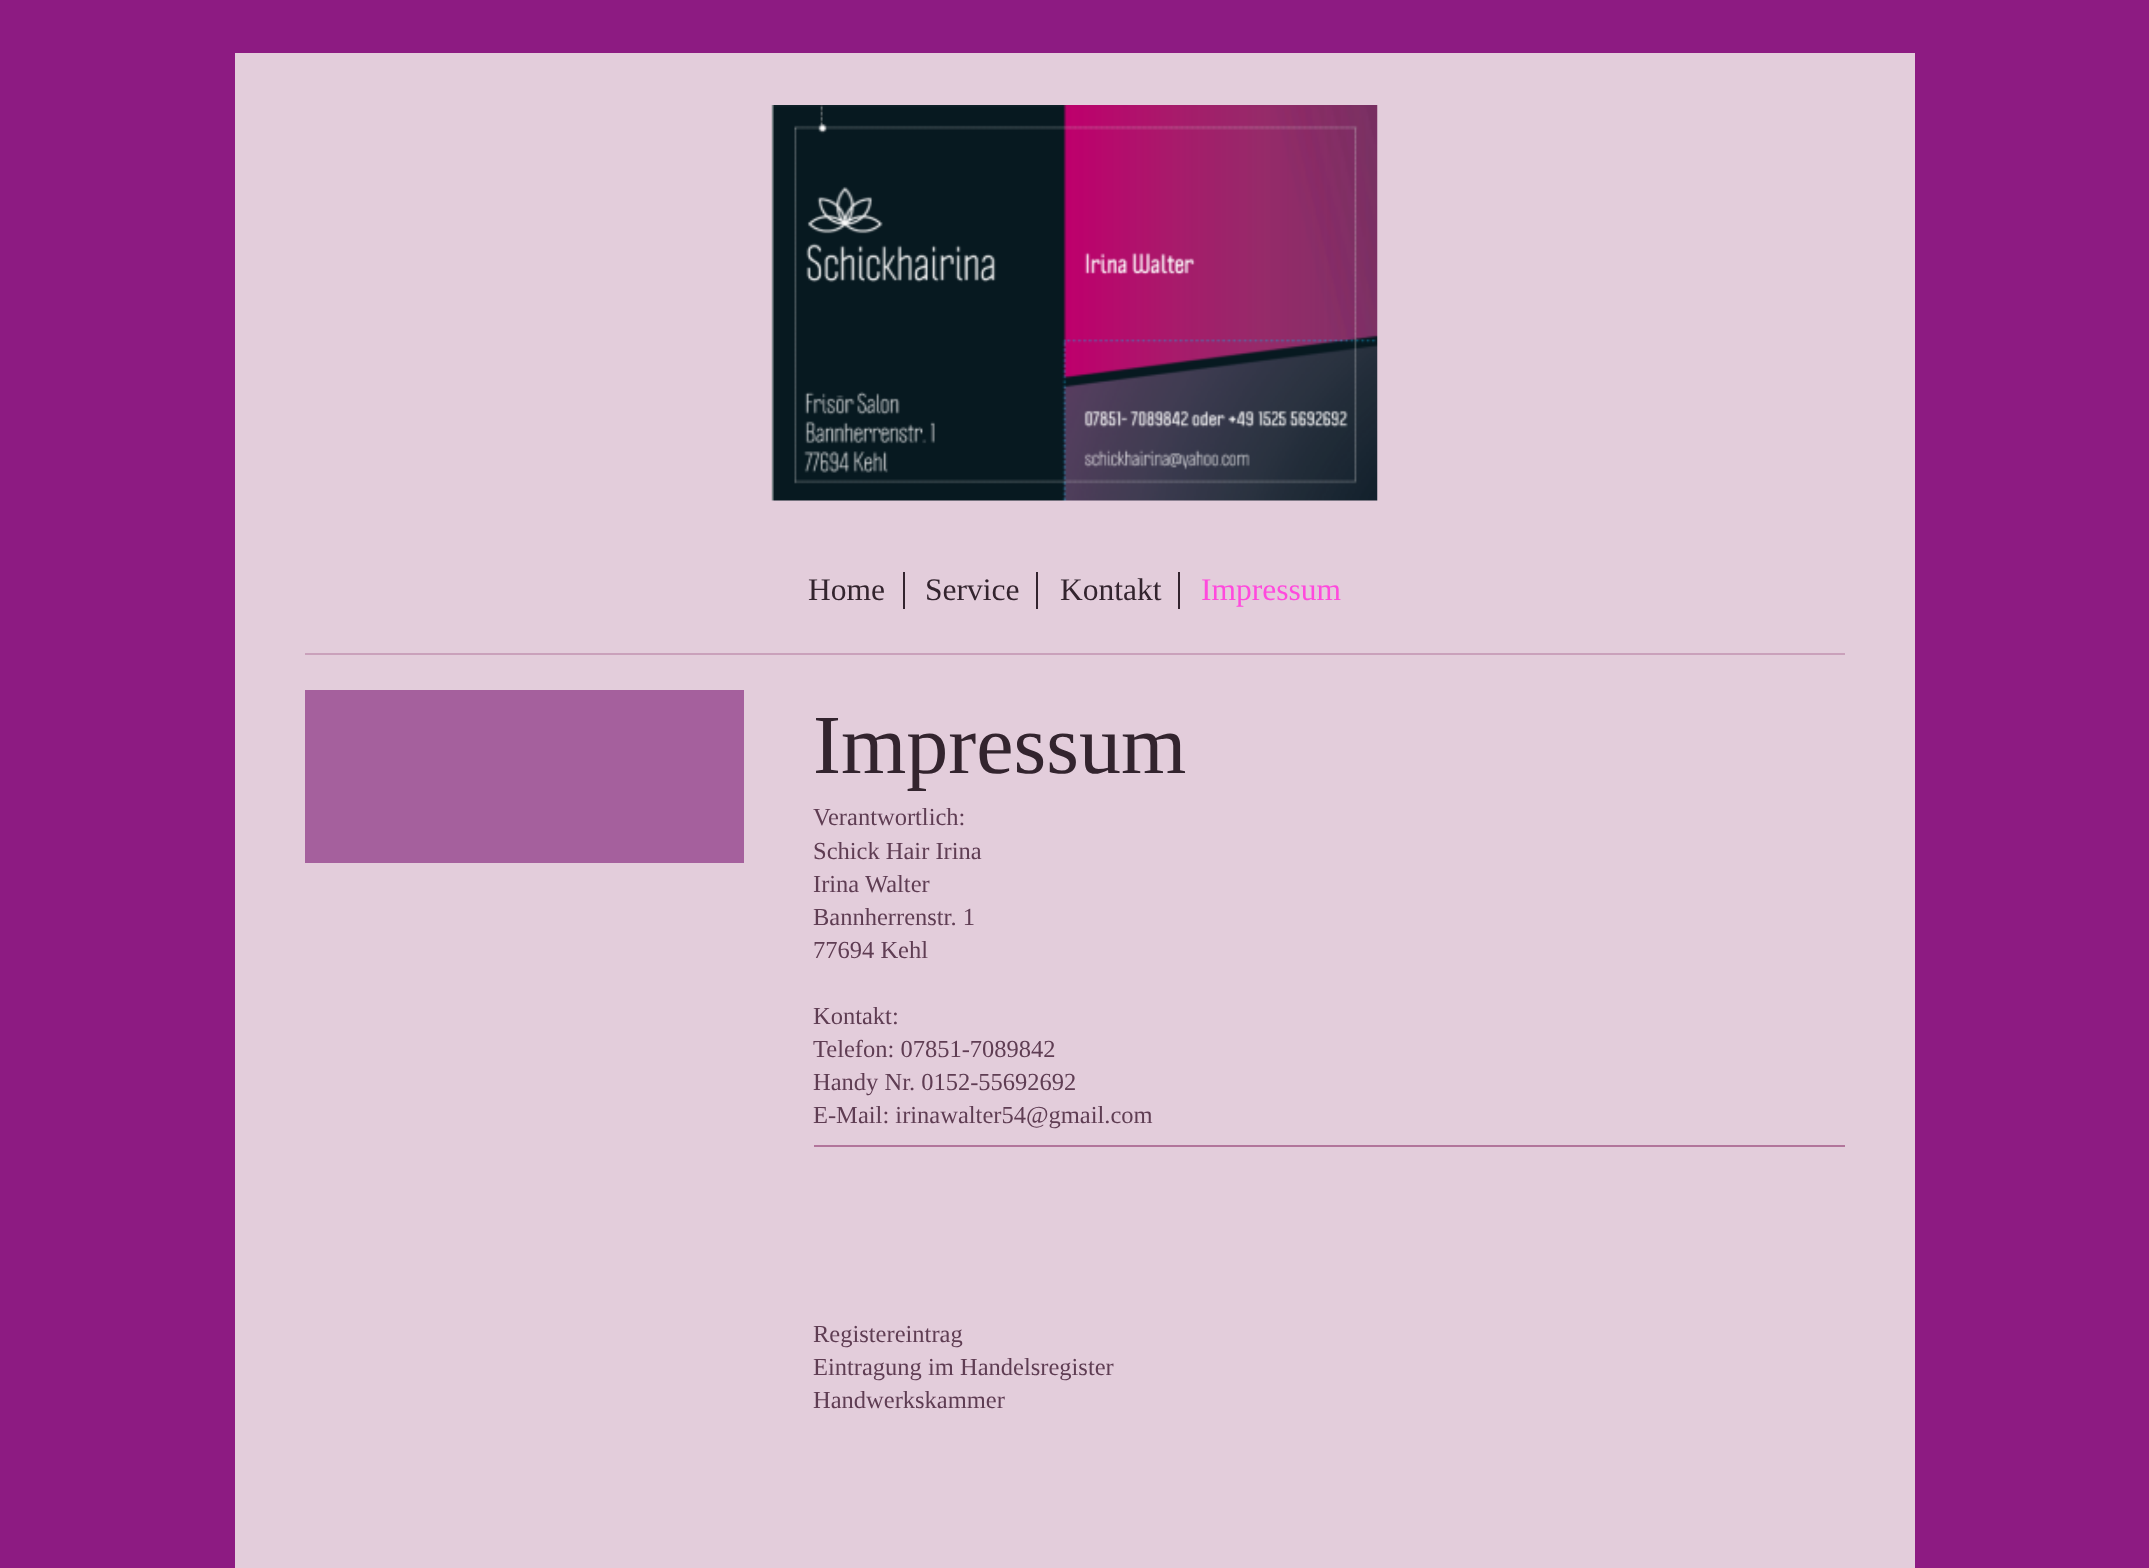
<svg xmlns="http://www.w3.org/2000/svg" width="2149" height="1568">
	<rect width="100%" height="100%" fill="#8D1B82" />
	<rect x="235" y="53" width="1680" height="1515" fill="#E3CDDB" />
	<image x="771" y="105" width="607" height="396" href="assets/img1.png" />
	<rect x="305" y="653" width="1540" height="2" fill="#CAA1BB" />
	<rect x="903" y="572" width="2" height="37" fill="#33242E" />
	<text x="808" y="600" font-family="Liberation Serif" font-size="31.5" fill="#33242E">Home</text>
	<rect x="1036" y="572" width="2" height="37" fill="#33242E" />
	<text x="925" y="600" font-family="Liberation Serif" font-size="31.5" fill="#33242E">Service</text>
	<rect x="1178" y="572" width="2" height="37" fill="#33242E" />
	<text x="1060" y="600" font-family="Liberation Serif" font-size="31.5" fill="#33242E">Kontakt</text>
	<text x="1201" y="600" font-family="Liberation Serif" font-size="31.5" fill="#FF4ADD">Impressum</text>
	<rect x="305" y="690" width="439" height="173" fill="#A5609D" />
	<text x="813" y="773" font-family="Liberation Serif" font-size="84" fill="#33242E">Impressum</text>
	<g font-family="Liberation Serif" font-size="24.5" fill="#5F3D53">
		<text x="813" y="825">Verantwortlich:</text>
		<text x="813" y="859">Schick Hair Irina</text>
		<text x="813" y="892">Irina</text>
		<text x="865" y="892">Walter</text>
		<text x="813" y="925">Bannherrenstr. 1</text>
		<text x="813" y="958">77694 Kehl</text>
		<text x="813" y="1024">Kontakt:</text>
		<text x="813" y="1057">Telefon: 07851-7089842</text>
		<text x="813" y="1090">Handy Nr. 0152-55692692</text>
		<text x="813" y="1123">E-Mail: irinawalter54@gmail.com</text>
	</g>
	<rect x="814" y="1145" width="1031" height="2" fill="#B2759B" />
	<g font-family="Liberation Serif" font-size="24.5" fill="#5F3D53">
		<text x="813" y="1342">Registereintrag</text>
		<text x="813" y="1375">Eintragung im Handelsregister</text>
		<text x="813" y="1408">Handwerkskammer</text>
	</g>
</svg>
